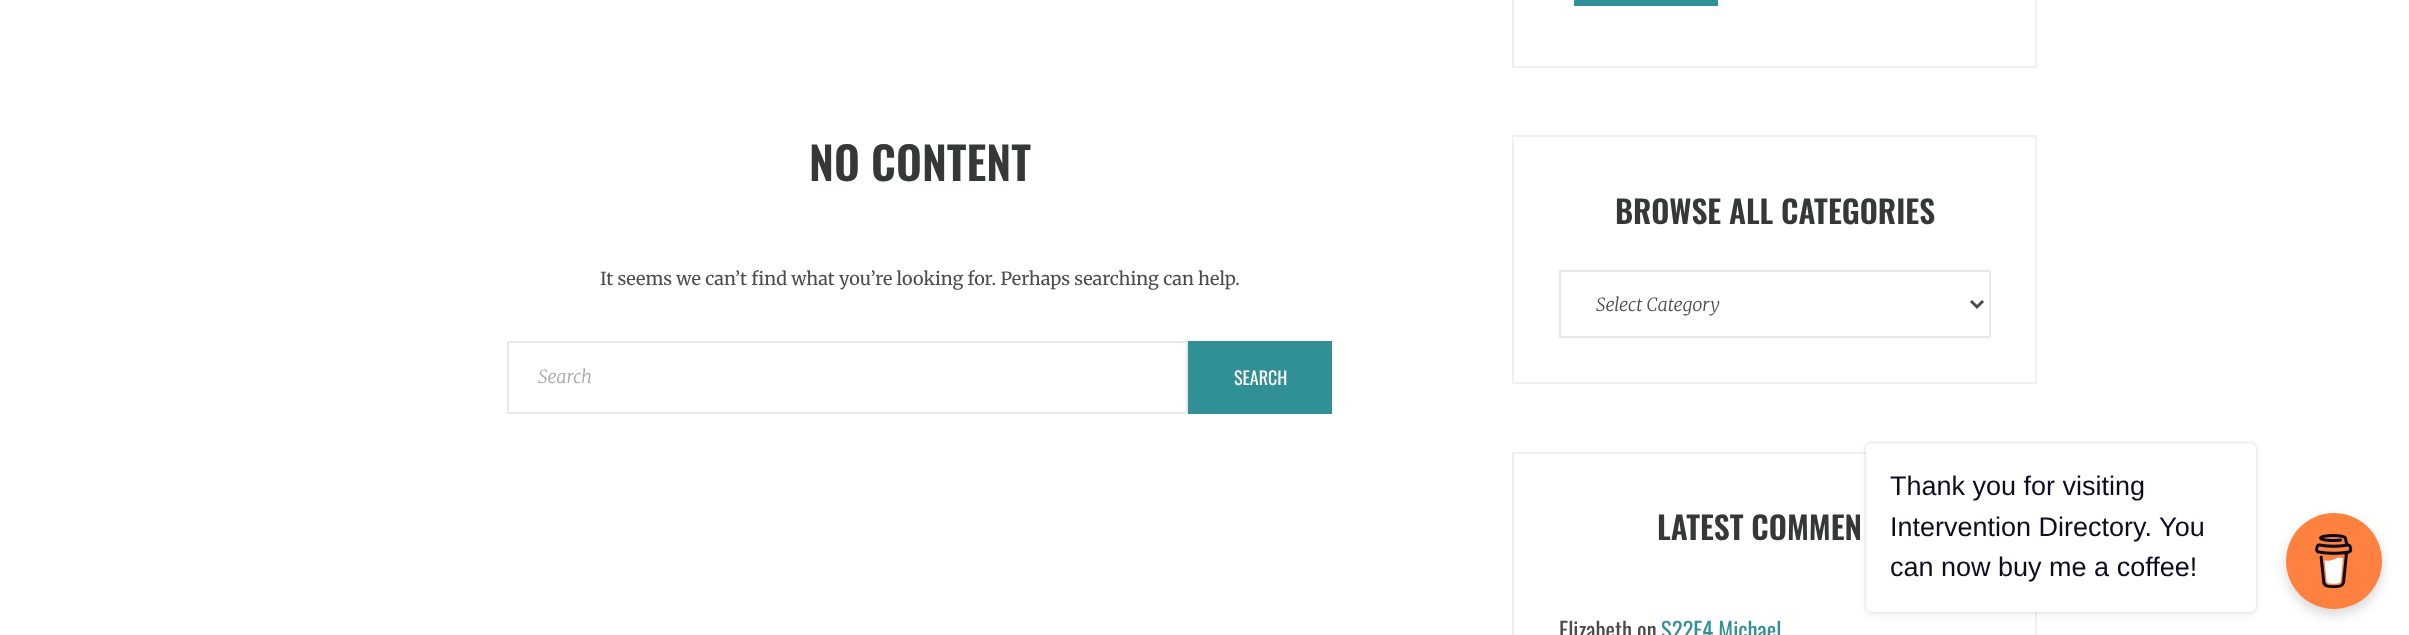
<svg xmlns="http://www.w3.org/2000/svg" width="2409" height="635">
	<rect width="100%" height="100%" fill="#FFFFFF" />
	<text x="809" y="181" font-family="Oswald" font-size="45" font-weight="600" fill="#343838">NO CONTENT</text>
	<text x="600" y="285" font-family="Merriweather" font-size="18" fill="#4C4C4C">It seems we can’t find what you’re looking for. Perhaps searching can help.</text>
	<rect x="508" y="342" width="679" height="71" fill="none" stroke="#E8E8E8" stroke-width="2" />
	<text x="538" y="383" font-family="Merriweather" font-size="18" font-weight="300" font-style="italic" fill="#A9A8A8">Search</text>
	<rect x="1188" y="341" width="144" height="73" fill="#318F96" />
	<text x="1234" y="385" font-family="Oswald" font-size="18" fill="#FFFFFF">SEARCH</text>
	<rect x="1513" y="-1" width="523" height="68" fill="none" stroke="#F0F0F0" stroke-width="2" />
	<rect x="1574" y="0" width="144" height="6" fill="#318F96" />
	<rect x="1513" y="136" width="523" height="247" fill="none" stroke="#F0F0F0" stroke-width="2" />
	<text x="1615" y="224" font-family="Oswald" font-size="31.5" font-weight="600" fill="#343838">BROWSE ALL CATEGORIES</text>
	<rect x="1560" y="271" width="430" height="66" fill="none" stroke="#E8E8E8" stroke-width="2" />
	<path d="M1971 301L1977 307L1983 301" fill="none" stroke="#4C4C4C" stroke-width="3" />
	<text x="1596" y="311" font-family="Merriweather" font-size="18" font-weight="300" font-style="italic" fill="#4C4C4C">Select Category</text>
	<rect x="1513" y="453" width="523" height="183" fill="none" stroke="#F0F0F0" stroke-width="2" />
	<text x="1657" y="540" font-family="Oswald" font-size="31.5" font-weight="600" fill="#343838">LATEST COMMEN</text>
	<text x="1559" y="639" font-family="Oswald" font-size="22.5" fill="#4C4C4C">Elizabeth on</text>
	<text x="1661" y="639" font-family="Oswald" font-size="22.5" fill="#318F96">S22E4 Michael</text>
	<rect x="1866" y="443" width="390" height="169" rx="6" fill="#000000" fill-opacity="0.15" filter="blur(1.5px)" />
	<rect x="1866" y="446" width="390" height="169" rx="6" fill="#000000" fill-opacity="0.05" filter="blur(4px)" />
	<rect x="1866" y="443" width="390" height="169" rx="6" fill="#FFFFFF" />
	<g font-family="Liberation Sans" font-size="27" fill="#0D0C22">
		<text x="1890" y="495">Thank you for visiting</text>
		<text x="1890" y="536">Intervention Directory. You</text>
		<text x="1890" y="576">can now buy me a coffee!</text>
	</g>
	<rect x="2286" y="519" width="96" height="96" rx="48" fill="#000000" fill-opacity="0.15" filter="blur(6px)" />
	<circle cx="2334" cy="561" r="48" fill="#FF813F" />
	<image x="2315" y="534" width="38" height="54" href="assets/img1.png" />
</svg>
